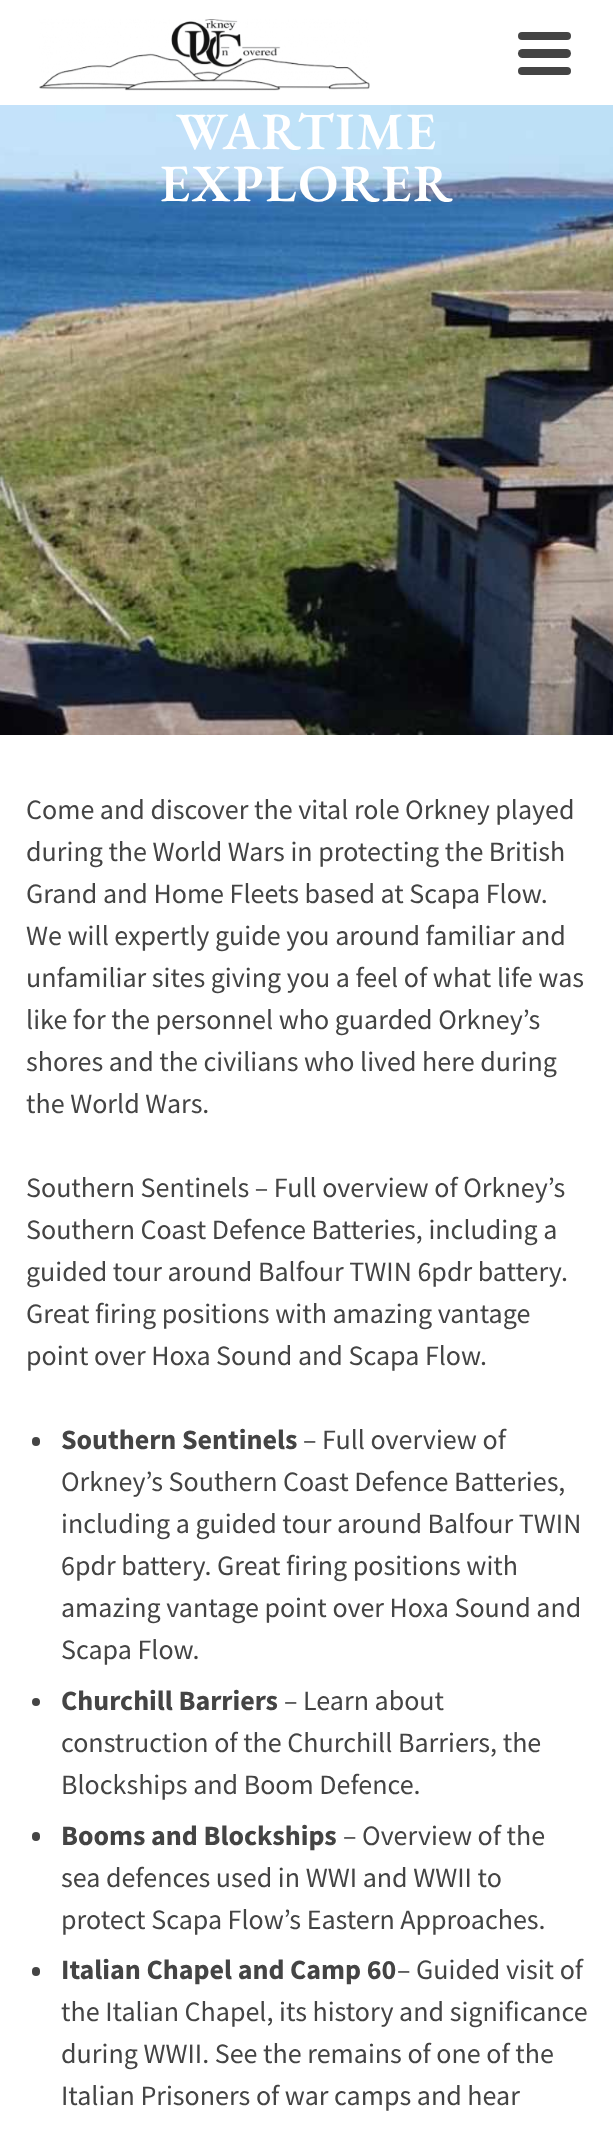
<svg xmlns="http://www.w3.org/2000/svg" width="613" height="2139">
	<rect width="100%" height="100%" fill="#FFFFFF" />
	<image x="39" y="19" width="331" height="72" href="assets/img1.png" />
	<rect x="518" y="32" width="53" height="8" rx="4" fill="#444444" />
	<rect x="518" y="49" width="53" height="9" rx="4.5" fill="#444444" />
	<rect x="518" y="67" width="53" height="8" rx="4" fill="#444444" />
	<image x="0" y="105" width="613" height="630" href="assets/img2.png" />
	<g font-family="EB Garamond" font-size="52.5" font-weight="600" letter-spacing="2" fill="#FFFFFF">
		<text x="176" y="149">WARTIME</text>
		<text x="160" y="201">EXPLORER</text>
	</g>
	<g font-family="Source Sans Pro" font-size="28" fill="#444444">
		<text x="26" y="819">Come and discover the vital role Orkney played</text>
		<text x="26" y="861">during the World Wars in protecting the British</text>
		<text x="26" y="903">Grand and Home Fleets based at Scapa Flow.</text>
		<text x="26" y="945">We will expertly guide you around familiar and</text>
		<text x="26" y="987">unfamiliar sites giving you a feel of what life was</text>
		<text x="26" y="1029">like for the personnel who guarded Orkney’s</text>
		<text x="26" y="1071">shores and the civilians who lived here during</text>
		<text x="26" y="1113">the World Wars.</text>
		<text x="26" y="1197">Southern Sentinels – Full overview of Orkney’s</text>
		<text x="26" y="1239">Southern Coast Defence Batteries, including a</text>
		<text x="26" y="1281">guided tour around Balfour TWIN 6pdr battery.</text>
		<text x="26" y="1323">Great firing positions with amazing vantage</text>
		<text x="26" y="1365">point over Hoxa Sound and Scapa Flow.</text>
	</g>
	<rect x="32" y="1437" width="8" height="9" rx="4" fill="#444444" />
	<text x="61" y="1449" font-family="Source Sans Pro" font-size="28" font-weight="700" fill="#444444">Southern Sentinels</text>
	<g font-family="Source Sans Pro" font-size="28" fill="#444444">
		<text x="303" y="1449">– Full overview of</text>
		<text x="61" y="1491">Orkney’s Southern Coast Defence Batteries,</text>
		<text x="61" y="1533">including a guided tour around Balfour TWIN</text>
		<text x="61" y="1575">6pdr battery. Great firing positions with</text>
		<text x="61" y="1617">amazing vantage point over Hoxa Sound and</text>
		<text x="61" y="1659">Scapa Flow.</text>
	</g>
	<circle cx="36" cy="1702" r="4" fill="#444444" />
	<text x="61" y="1710" font-family="Source Sans Pro" font-size="28" font-weight="700" fill="#444444">Churchill Barriers</text>
	<g font-family="Source Sans Pro" font-size="28" fill="#444444">
		<text x="284" y="1710">– Learn about</text>
		<text x="61" y="1752">construction of the Churchill Barriers, the</text>
		<text x="61" y="1794">Blockships and Boom Defence.</text>
	</g>
	<rect x="32" y="1832" width="8" height="9" rx="4" fill="#444444" />
	<text x="61" y="1845" font-family="Source Sans Pro" font-size="28" font-weight="700" fill="#444444">Booms and Blockships</text>
	<g font-family="Source Sans Pro" font-size="28" fill="#444444">
		<text x="343" y="1845">– Overview of the</text>
		<text x="61" y="1887">sea defences used in WWI and WWII to</text>
		<text x="61" y="1929">protect Scapa Flow’s Eastern Approaches.</text>
	</g>
	<rect x="32" y="1967" width="8" height="9" rx="4" fill="#444444" />
	<text x="61" y="1979" font-family="Source Sans Pro" font-size="28" font-weight="700" fill="#444444">Italian Chapel and Camp 60</text>
	<g font-family="Source Sans Pro" font-size="28" fill="#444444">
		<text x="397" y="1979">– Guided visit of</text>
		<text x="61" y="2021">the Italian Chapel, its history and significance</text>
		<text x="61" y="2063">during WWII. See the remains of one of the</text>
		<text x="61" y="2105">Italian Prisoners of war camps and hear</text>
	</g>
</svg>
